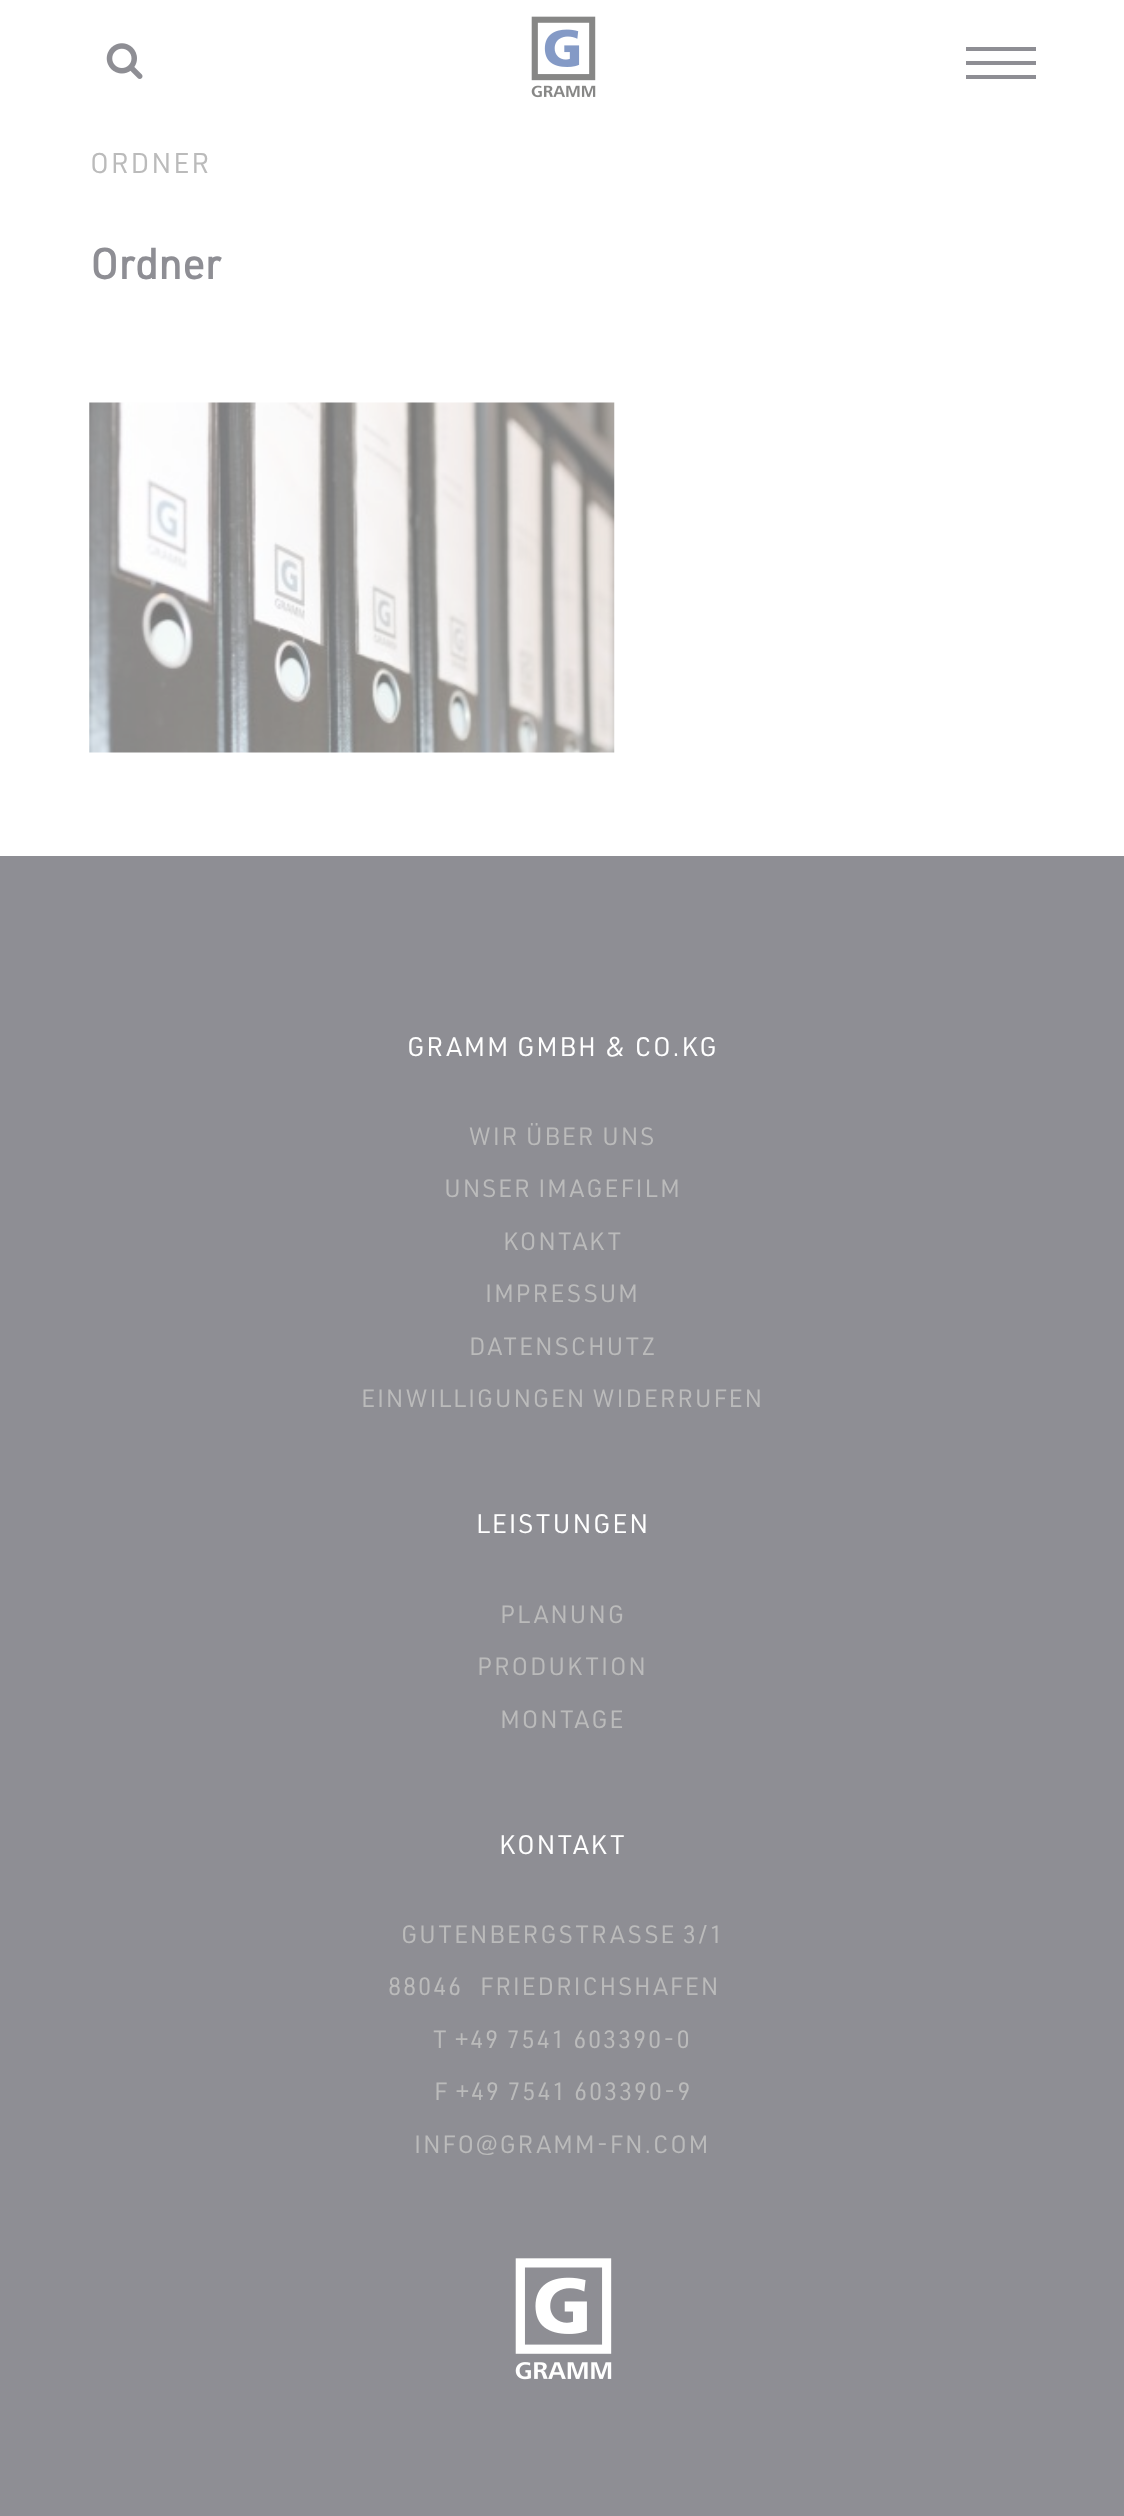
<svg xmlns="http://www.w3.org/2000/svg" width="1124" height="2516">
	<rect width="100%" height="100%" fill="#FFFFFF" />
	<image x="106" y="43" width="37" height="36" href="assets/img1.png" />
	<image x="531" y="16" width="65" height="82" href="assets/img2.png" />
	<rect x="966" y="47" width="70" height="4" fill="#8E8E94" />
	<rect x="966" y="61" width="70" height="4" fill="#8E8E94" />
	<rect x="966" y="75" width="70" height="4" fill="#8E8E94" />
	<text x="90" y="173" font-family="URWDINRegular" font-size="28" letter-spacing="1.75" fill="#BBBBBB">ORDNER</text>
	<text x="90" y="279" font-family="URWDINRegular" font-size="42" font-weight="700" fill="#8E8E94">Ordner</text>
	<image x="89" y="402" width="526" height="351" href="assets/img3.png" />
	<rect x="0" y="856" width="1124" height="1660" fill="#8E8E94" />
	<text x="407" y="1056" font-family="URWDINRegular" font-size="26.25" letter-spacing="1.75" fill="#FFFFFF">GRAMM GMBH &amp; CO.KG</text>
	<g font-family="URWDINRegular" font-size="24.5" letter-spacing="1.75" fill="#BBBBBB">
		<text x="469" y="1145">WIR ÜBER UNS</text>
		<text x="444" y="1197">UNSER IMAGEFILM</text>
		<text x="503" y="1250">KONTAKT</text>
		<text x="485" y="1302">IMPRESSUM</text>
		<text x="469" y="1355">DATENSCHUTZ</text>
		<text x="361" y="1407">EINWILLIGUNGEN WIDERRUFEN</text>
	</g>
	<text x="476" y="1533" font-family="URWDINRegular" font-size="26.25" letter-spacing="1.75" fill="#FFFFFF">LEISTUNGEN</text>
	<g font-family="URWDINRegular" font-size="24.5" letter-spacing="1.75" fill="#BBBBBB">
		<text x="500" y="1623">PLANUNG</text>
		<text x="477" y="1675">PRODUKTION</text>
		<text x="500" y="1728">MONTAGE</text>
	</g>
	<text x="499" y="1854" font-family="URWDINRegular" font-size="26.25" letter-spacing="1.75" fill="#FFFFFF">KONTAKT</text>
	<g font-family="URWDINRegular" font-size="24.5" letter-spacing="1.75" fill="#BBBBBB">
		<text x="401" y="1943">GUTENBERGSTRASSE 3/1</text>
		<text x="388" y="1995">88046</text>
		<text x="480" y="1995">FRIEDRICHSHAFEN</text>
		<text x="433" y="2048">T +49 7541 603390-0</text>
		<text x="434" y="2100">F +49 7541 603390-9</text>
		<text x="414" y="2153">INFO@GRAMM-FN.COM</text>
	</g>
	<image x="515" y="2258" width="97" height="122" href="assets/img4.png" />
</svg>
